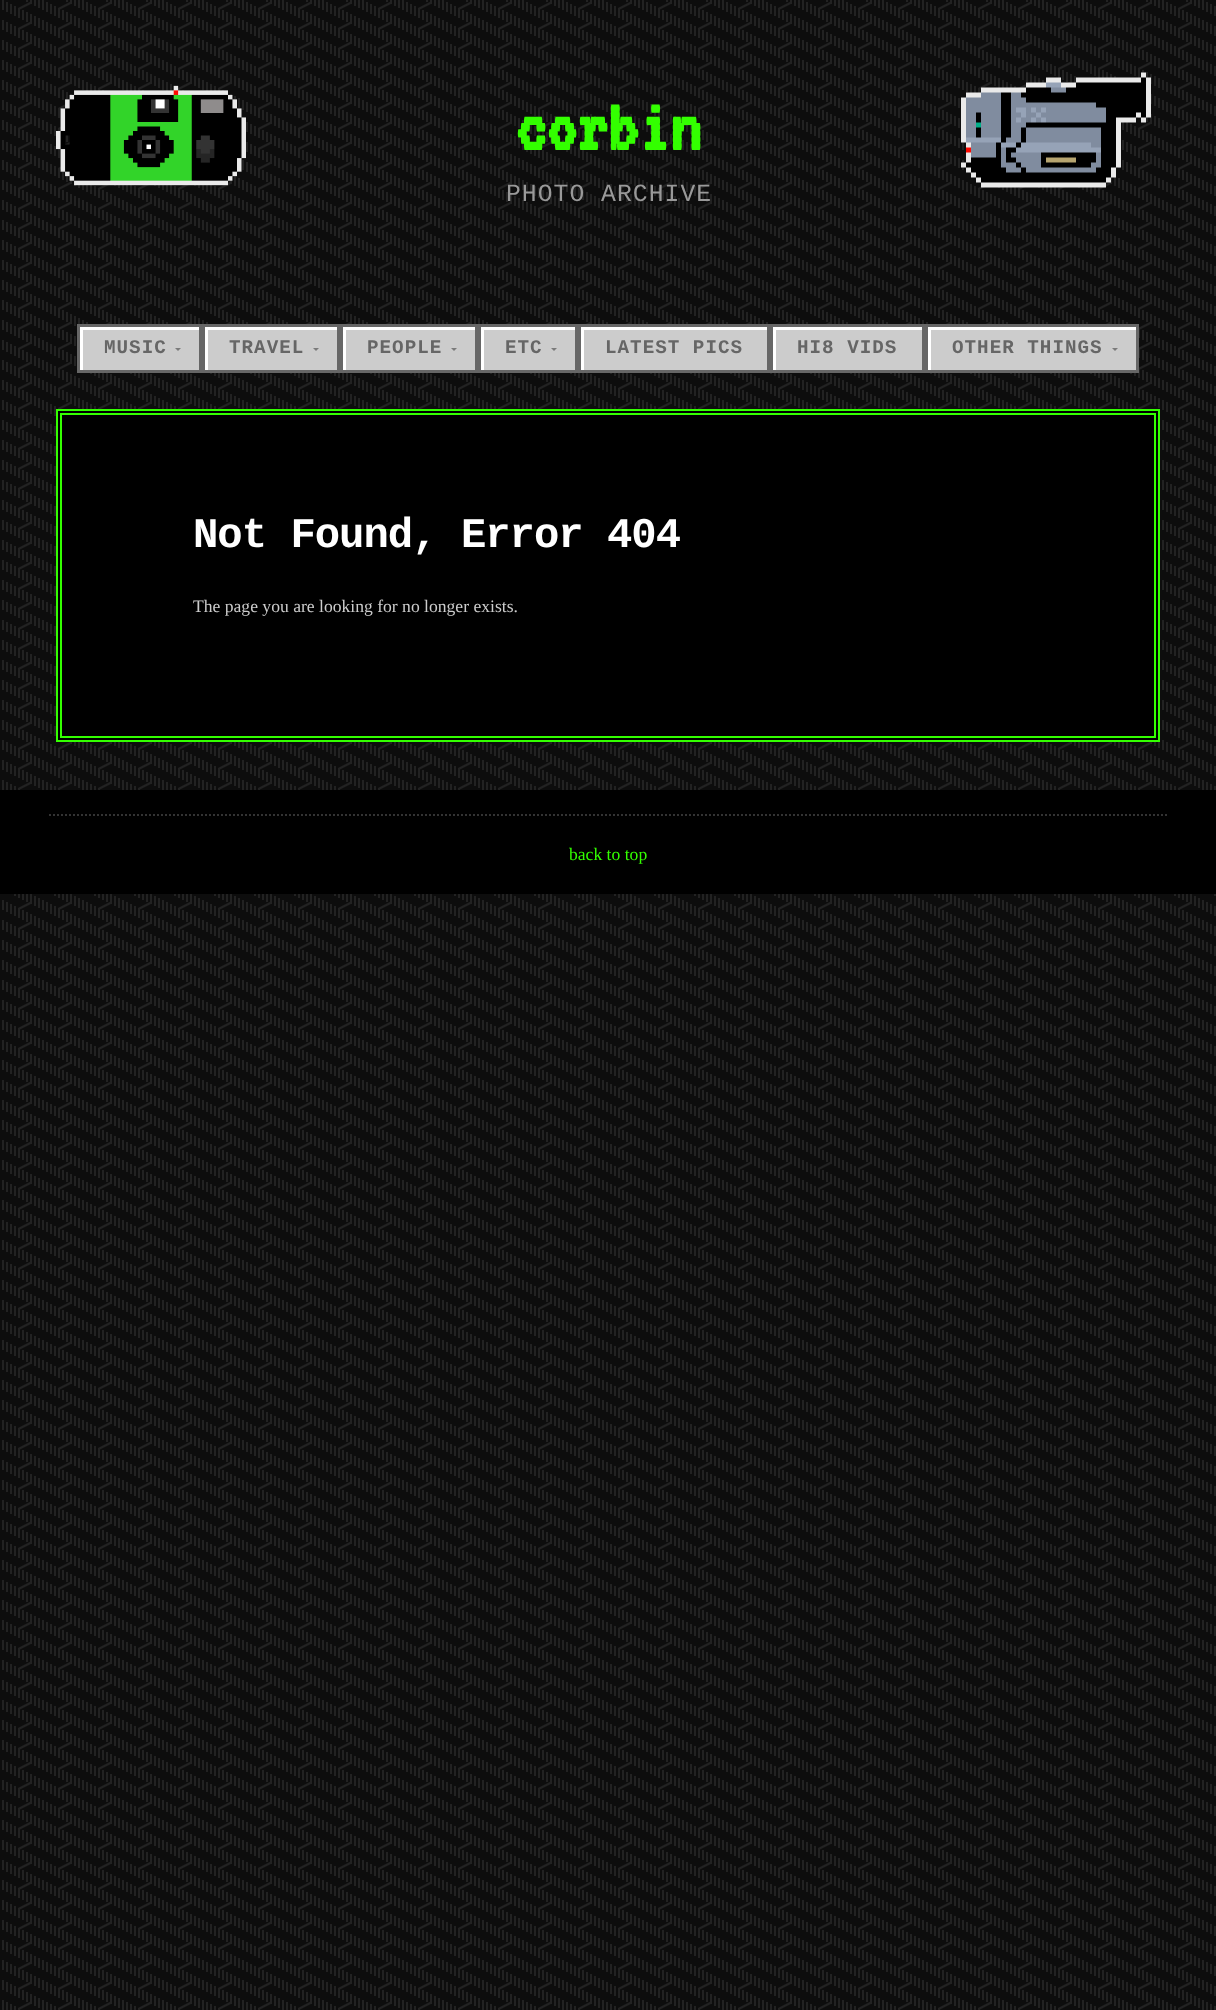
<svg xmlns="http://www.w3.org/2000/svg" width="1216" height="2010">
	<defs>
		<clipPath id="clip1"><rect x="80" y="327" width="119" height="43" /></clipPath>
		<clipPath id="clip2"><rect x="205" y="327" width="132" height="43" /></clipPath>
		<clipPath id="clip3"><rect x="343" y="327" width="132" height="43" /></clipPath>
		<clipPath id="clip4"><rect x="481" y="327" width="94" height="43" /></clipPath>
		<clipPath id="clip5"><rect x="581" y="327" width="186" height="43" /></clipPath>
		<clipPath id="clip6"><rect x="773" y="327" width="149" height="43" /></clipPath>
		<clipPath id="clip7"><rect x="928" y="327" width="208" height="43" /></clipPath>
	</defs>
	<rect width="100%" height="100%" fill="#FFFFFF" />
	<image x="0" y="0" width="1216" height="2010" href="assets/img1.png" />
	<image x="56" y="85" width="190" height="101" href="assets/img2.png" />
	<text x="515" y="150" font-family="'VT323'" font-size="77.5" font-weight="700" fill="#33FF00">corbin</text>
	<text x="506" y="201" font-family="Liberation Mono" font-size="24.75" letter-spacing="1" fill="#999999">PHOTO ARCHIVE</text>
	<image x="961" y="72" width="190" height="116" href="assets/img3.png" />
	<rect x="83" y="330" width="116" height="40" fill="#CCCCCC" />
	<g clip-path="url(#clip1)">
		<path d="M-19 228H298V469H-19ZM83 330H202V373H83Z" fill="#FFFFFF" fill-rule="evenodd" />
	</g>
	<rect x="78.5" y="325.5" width="122" height="46" fill="none" stroke="#666666" stroke-width="3" />
	<text x="104" y="353" font-family="Liberation Mono" font-size="19.25" font-weight="700" letter-spacing="1" fill="#666666">MUSIC</text>
	<path d="M175 348H181L178 351Z" fill="#7A7A7A" />
	<rect x="208" y="330" width="129" height="40" fill="#CCCCCC" />
	<g clip-path="url(#clip2)">
		<path d="M106 228H436V469H106ZM208 330H340V373H208Z" fill="#FFFFFF" fill-rule="evenodd" />
	</g>
	<rect x="203.5" y="325.5" width="135" height="46" fill="none" stroke="#666666" stroke-width="3" />
	<text x="229" y="353" font-family="Liberation Mono" font-size="19.25" font-weight="700" letter-spacing="1" fill="#666666">TRAVEL</text>
	<path d="M313 348H319L316 351Z" fill="#7A7A7A" />
	<rect x="346" y="330" width="129" height="40" fill="#CCCCCC" />
	<g clip-path="url(#clip3)">
		<path d="M244 228H574V469H244ZM346 330H478V373H346Z" fill="#FFFFFF" fill-rule="evenodd" />
	</g>
	<rect x="341.5" y="325.5" width="135" height="46" fill="none" stroke="#666666" stroke-width="3" />
	<text x="367" y="353" font-family="Liberation Mono" font-size="19.25" font-weight="700" letter-spacing="1" fill="#666666">PEOPLE</text>
	<path d="M451 348H457L454 351Z" fill="#7A7A7A" />
	<rect x="484" y="330" width="91" height="40" fill="#CCCCCC" />
	<g clip-path="url(#clip4)">
		<path d="M382 228H674V469H382ZM484 330H578V373H484Z" fill="#FFFFFF" fill-rule="evenodd" />
	</g>
	<rect x="479.5" y="325.5" width="97" height="46" fill="none" stroke="#666666" stroke-width="3" />
	<text x="505" y="353" font-family="Liberation Mono" font-size="19.25" font-weight="700" letter-spacing="1" fill="#666666">ETC</text>
	<path d="M551 348H557L554 351Z" fill="#7A7A7A" />
	<rect x="584" y="330" width="183" height="40" fill="#CCCCCC" />
	<g clip-path="url(#clip5)">
		<path d="M482 228H866V469H482ZM584 330H770V373H584Z" fill="#FFFFFF" fill-rule="evenodd" />
	</g>
	<rect x="579.5" y="325.5" width="189" height="46" fill="none" stroke="#666666" stroke-width="3" />
	<text x="605" y="353" font-family="Liberation Mono" font-size="19.25" font-weight="700" letter-spacing="1" fill="#666666">LATEST PICS</text>
	<rect x="776" y="330" width="146" height="40" fill="#CCCCCC" />
	<g clip-path="url(#clip6)">
		<path d="M674 228H1021V469H674ZM776 330H925V373H776Z" fill="#FFFFFF" fill-rule="evenodd" />
	</g>
	<rect x="771.5" y="325.5" width="152" height="46" fill="none" stroke="#666666" stroke-width="3" />
	<text x="797" y="353" font-family="Liberation Mono" font-size="19.25" font-weight="700" letter-spacing="1" fill="#666666">HI8 VIDS</text>
	<rect x="931" y="330" width="205" height="40" fill="#CCCCCC" />
	<g clip-path="url(#clip7)">
		<path d="M829 228H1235V469H829ZM931 330H1139V373H931Z" fill="#FFFFFF" fill-rule="evenodd" />
	</g>
	<rect x="926.5" y="325.5" width="211" height="46" fill="none" stroke="#666666" stroke-width="3" />
	<text x="952" y="353" font-family="Liberation Mono" font-size="19.25" font-weight="700" letter-spacing="1" fill="#666666">OTHER THINGS</text>
	<path d="M1112 348H1118L1115 351Z" fill="#7A7A7A" />
	<rect x="57" y="410" width="1102" height="331" fill="#000000" stroke="#33FF00" stroke-width="2" />
	<rect x="61" y="414" width="1094" height="323" fill="none" stroke="#33FF00" stroke-width="2" />
	<text x="193" y="547" font-family="Liberation Mono" font-size="42.25" font-weight="700" letter-spacing="-1" fill="#FFFFFF">Not Found, Error 404</text>
	<text x="193" y="612" font-family="Liberation Serif" font-size="17.6" fill="#CCCCCC">The page you are looking for no longer exists.</text>
	<rect x="0" y="790" width="1216" height="104" fill="#000000" />
	<path d="M49 815H1167" fill="none" stroke="#333333" stroke-width="2" stroke-dasharray="2 2" />
	<text x="569" y="860" font-family="Liberation Serif" font-size="17.6" fill="#33FF00">back to top</text>
</svg>
